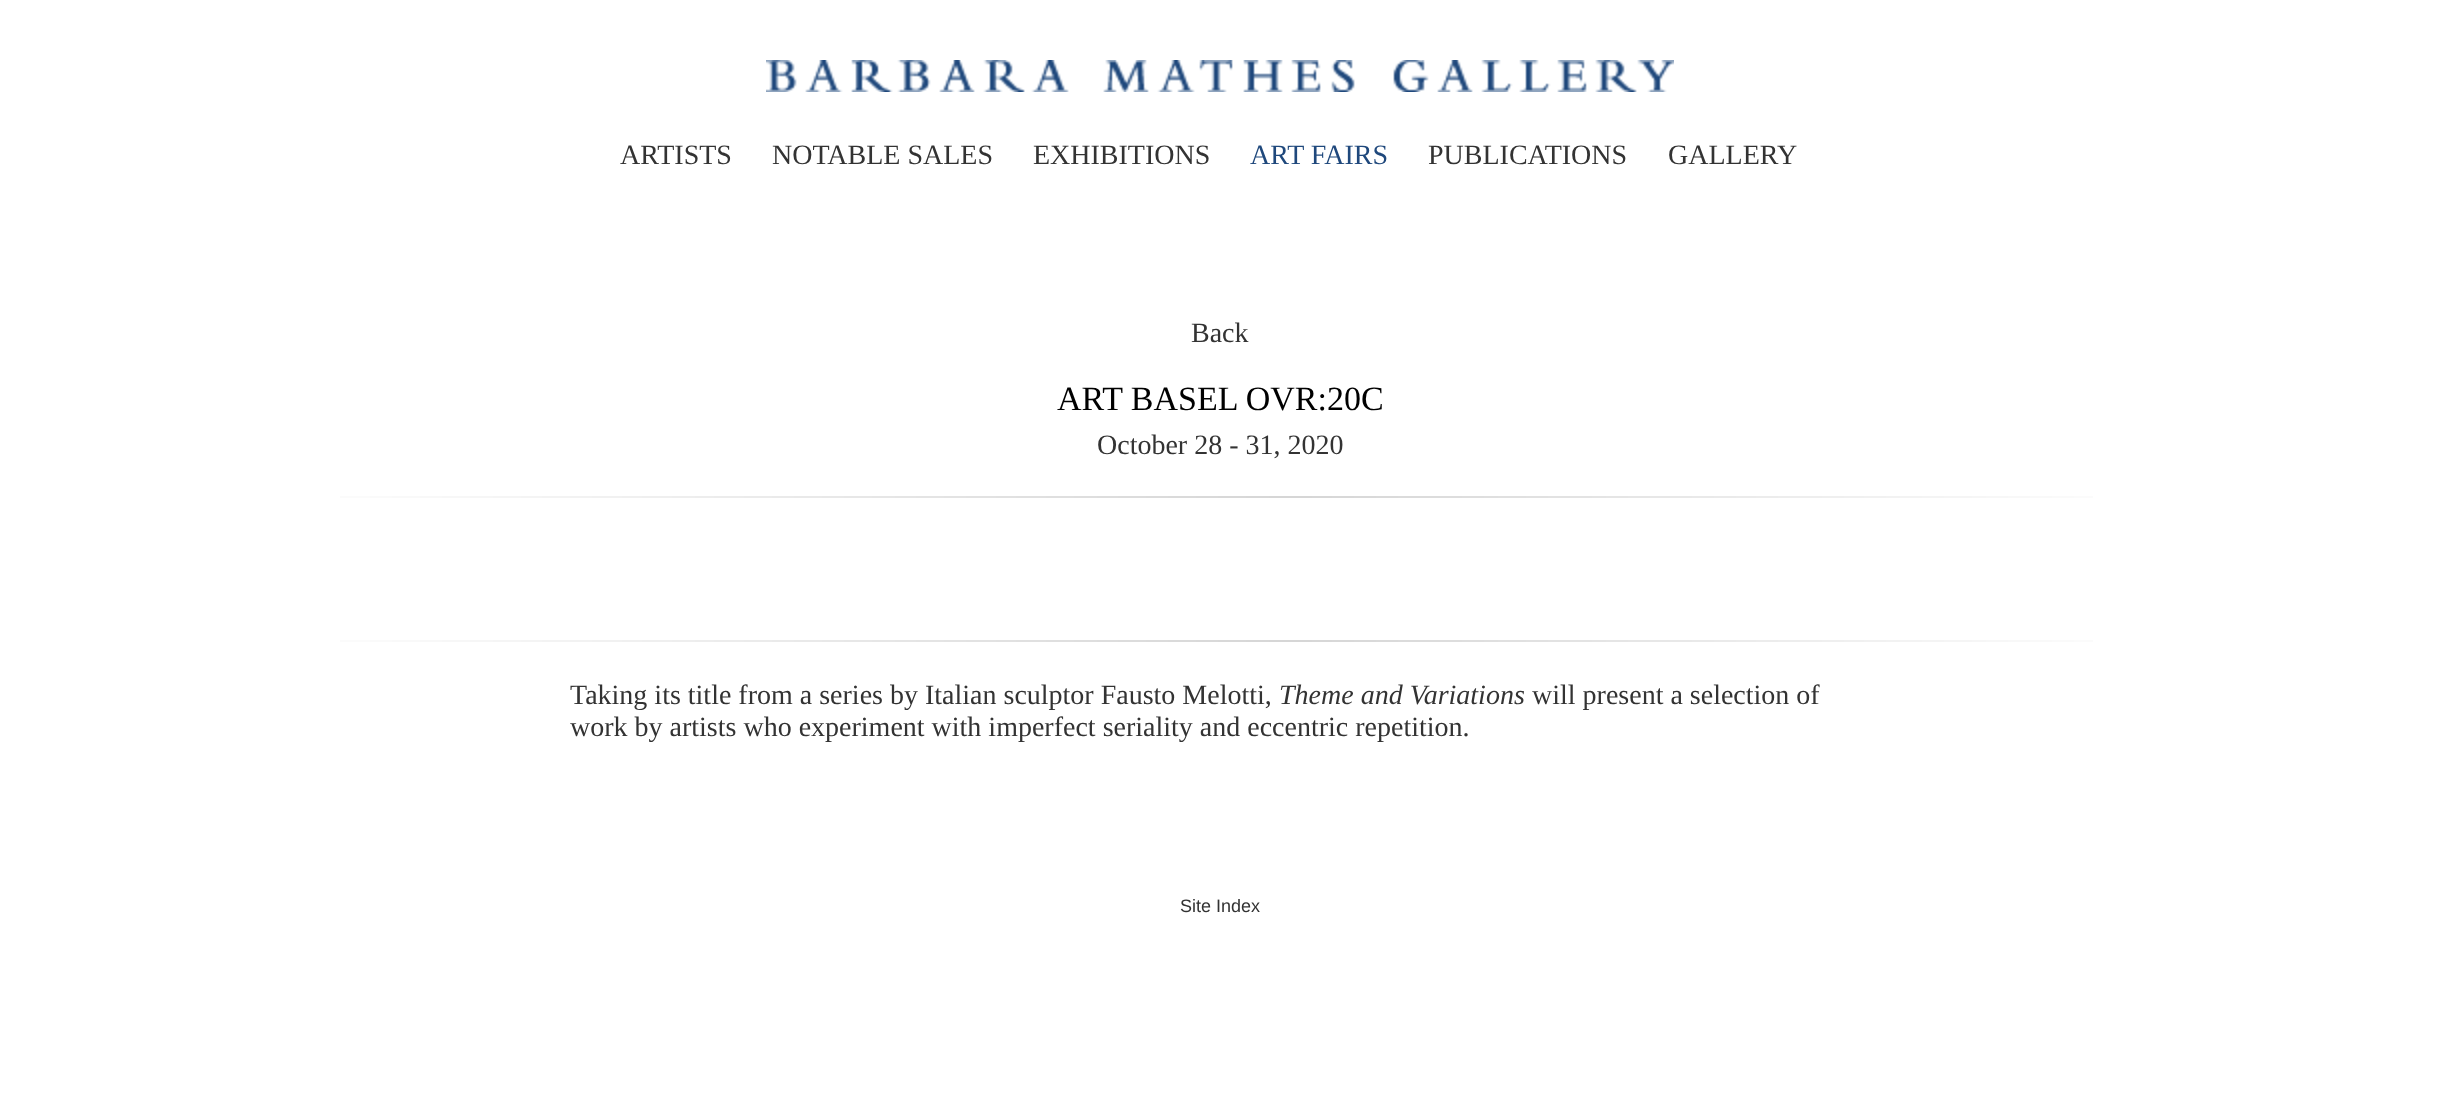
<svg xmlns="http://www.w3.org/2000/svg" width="2439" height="1114">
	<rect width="100%" height="100%" fill="#FFFFFF" />
	<image x="766" y="60" width="908" height="32" href="assets/img1.png" />
	<g font-family="Liberation Serif" font-size="28" fill="#333333">
		<text x="620" y="164">ARTISTS</text>
		<text x="772" y="164">NOTABLE SALES</text>
		<text x="1033" y="164">EXHIBITIONS</text>
	</g>
	<text x="1250" y="164" font-family="Liberation Serif" font-size="28" fill="#1F487C">ART FAIRS</text>
	<g font-family="Liberation Serif" font-size="28" fill="#333333">
		<text x="1428" y="164">PUBLICATIONS</text>
		<text x="1668" y="164">GALLERY</text>
		<text x="1191" y="342">Back</text>
	</g>
	<text x="1057" y="410" font-family="Liberation Serif" font-size="34" fill="#000000">ART BASEL OVR:20C</text>
	<text x="1097" y="454" font-family="Liberation Serif" font-size="28" fill="#333333">October 28 - 31, 2020</text>
	<image x="340" y="496" width="1753" height="2" href="assets/img2.png" />
	<image x="340" y="640" width="1753" height="2" href="assets/img2.png" />
	<text x="570" y="704" font-family="Liberation Serif" font-size="28" fill="#333333">Taking its title from a series by Italian sculptor Fausto Melotti,</text>
	<text x="1279" y="704" font-family="Liberation Serif" font-size="28" font-style="italic" fill="#333333">Theme and Variations</text>
	<g font-family="Liberation Serif" font-size="28" fill="#333333">
		<text x="1532" y="704">will present a selection of</text>
		<text x="570" y="736">work by artists who experiment with imperfect seriality and eccentric repetition.</text>
	</g>
	<text x="1180" y="912" font-family="Liberation Sans" font-size="18" fill="#333333">Site Index</text>
</svg>
